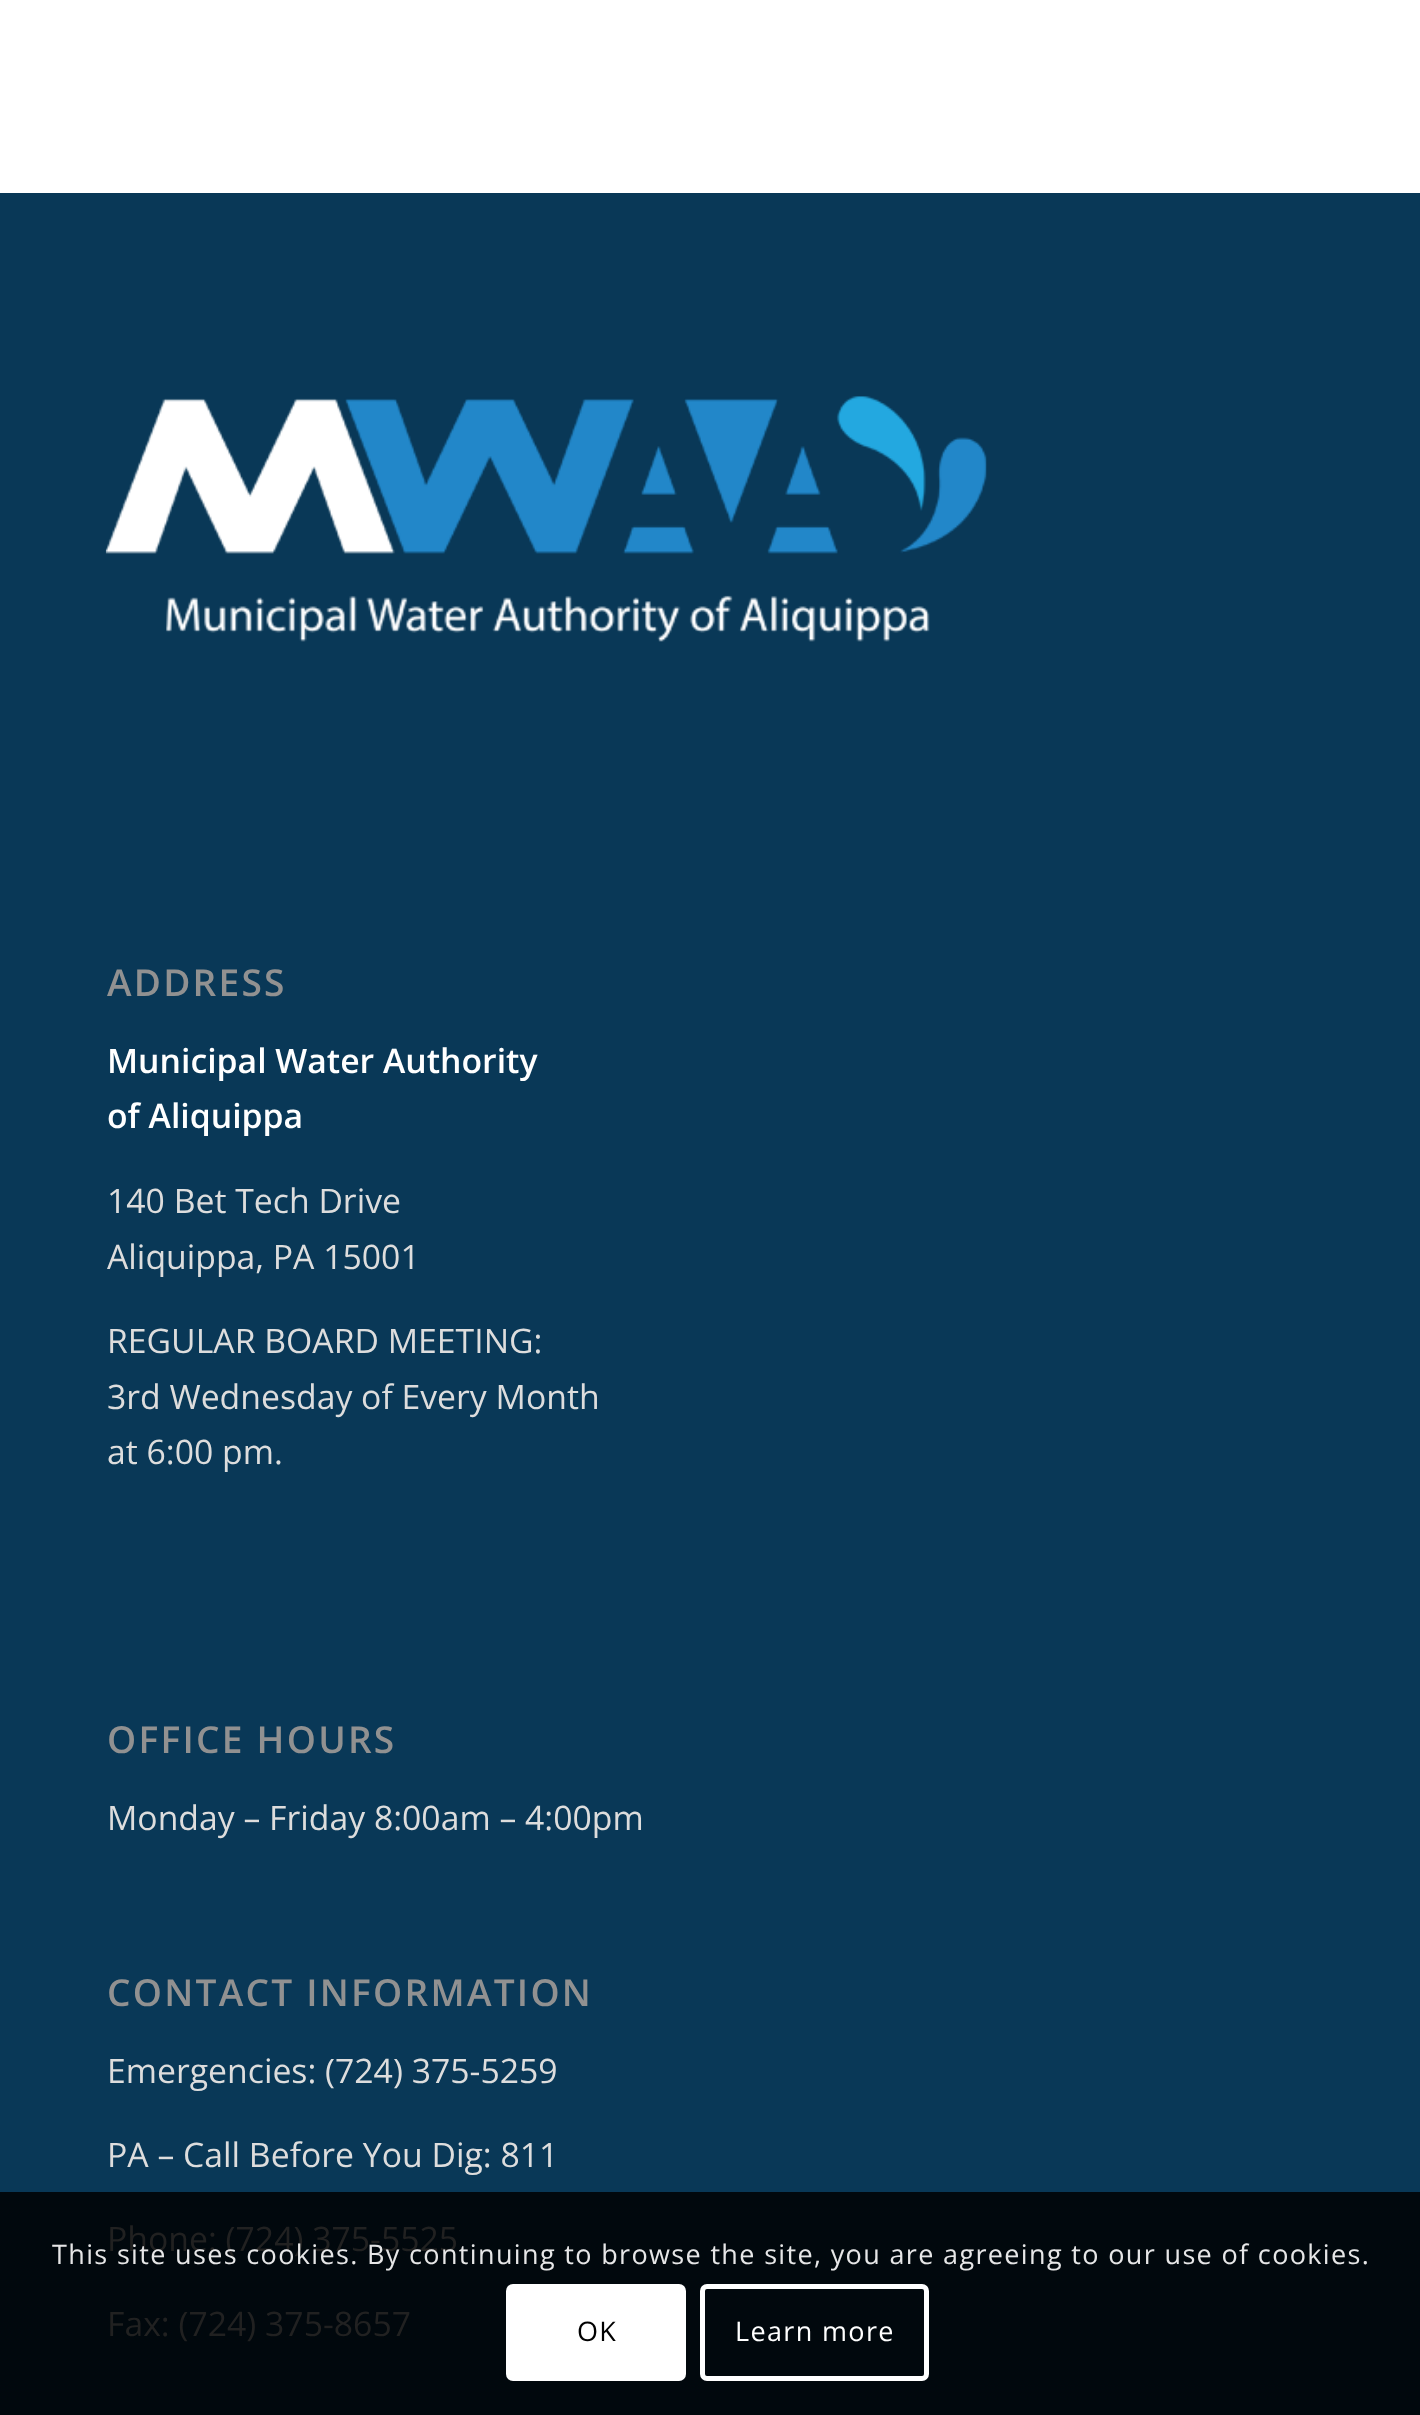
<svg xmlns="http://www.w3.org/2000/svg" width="1420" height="2415">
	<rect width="100%" height="100%" fill="#FFFFFF" />
	<rect x="0" y="193" width="1420" height="1999" fill="#093857" />
	<rect x="0" y="2192" width="1420" height="223" fill="#01080D" />
	<image x="105" y="396" width="882" height="246" href="assets/img1.png" />
	<text x="107" y="996" font-family="Open Sans" font-size="37.1" font-weight="600" letter-spacing="2.25" fill="#919191">ADDRESS</text>
	<g font-family="Open Sans" font-size="33.75" font-weight="600" fill="#FFFFFF">
		<text x="107" y="1073">Municipal Water Authority</text>
		<text x="107" y="1128">of Aliquippa</text>
	</g>
	<g font-family="Open Sans" font-size="33.75" fill="#DDDDDD">
		<text x="107" y="1213">140 Bet Tech Drive</text>
		<text x="107" y="1269">Aliquippa, PA 15001</text>
		<text x="107" y="1353">REGULAR BOARD MEETING:</text>
		<text x="107" y="1409">3rd Wednesday of Every Month</text>
		<text x="107" y="1464">at 6:00 pm.</text>
	</g>
	<text x="107" y="1753" font-family="Open Sans" font-size="37.1" font-weight="600" letter-spacing="2.25" fill="#919191">OFFICE HOURS</text>
	<text x="107" y="1830" font-family="Open Sans" font-size="33.75" fill="#DDDDDD">Monday – Friday 8:00am – 4:00pm</text>
	<text x="107" y="2006" font-family="Open Sans" font-size="37.1" font-weight="600" letter-spacing="2.25" fill="#919191">CONTACT INFORMATION</text>
	<g font-family="Open Sans" font-size="33.75" fill="#DDDDDD">
		<text x="107" y="2083">Emergencies: (724) 375-5259</text>
		<text x="107" y="2167">PA – Call Before You Dig: 811</text>
	</g>
	<g font-family="Open Sans" font-size="33.75" fill="#212121">
		<text x="107" y="2251">Phone: (724) 375-5525</text>
		<text x="107" y="2336">Fax: (724) 375-8657</text>
	</g>
	<text x="52" y="2264" font-family="Open Sans" font-size="27" letter-spacing="1.35" fill="#E6E6E7">This site uses cookies. By continuing to browse the site, you are agreeing to our use of cookies.</text>
	<rect x="506" y="2284" width="180" height="97" rx="7" fill="#FFFFFF" />
	<text x="577" y="2341" font-family="Open Sans" font-size="27" letter-spacing="1.35" fill="#000000">OK</text>
	<rect x="702.5" y="2286.5" width="224" height="92" rx="4.5" fill="none" stroke="#FFFFFF" stroke-width="5" />
	<text x="735" y="2341" font-family="Open Sans" font-size="27" letter-spacing="1.35" fill="#FFFFFF">Learn more</text>
</svg>
